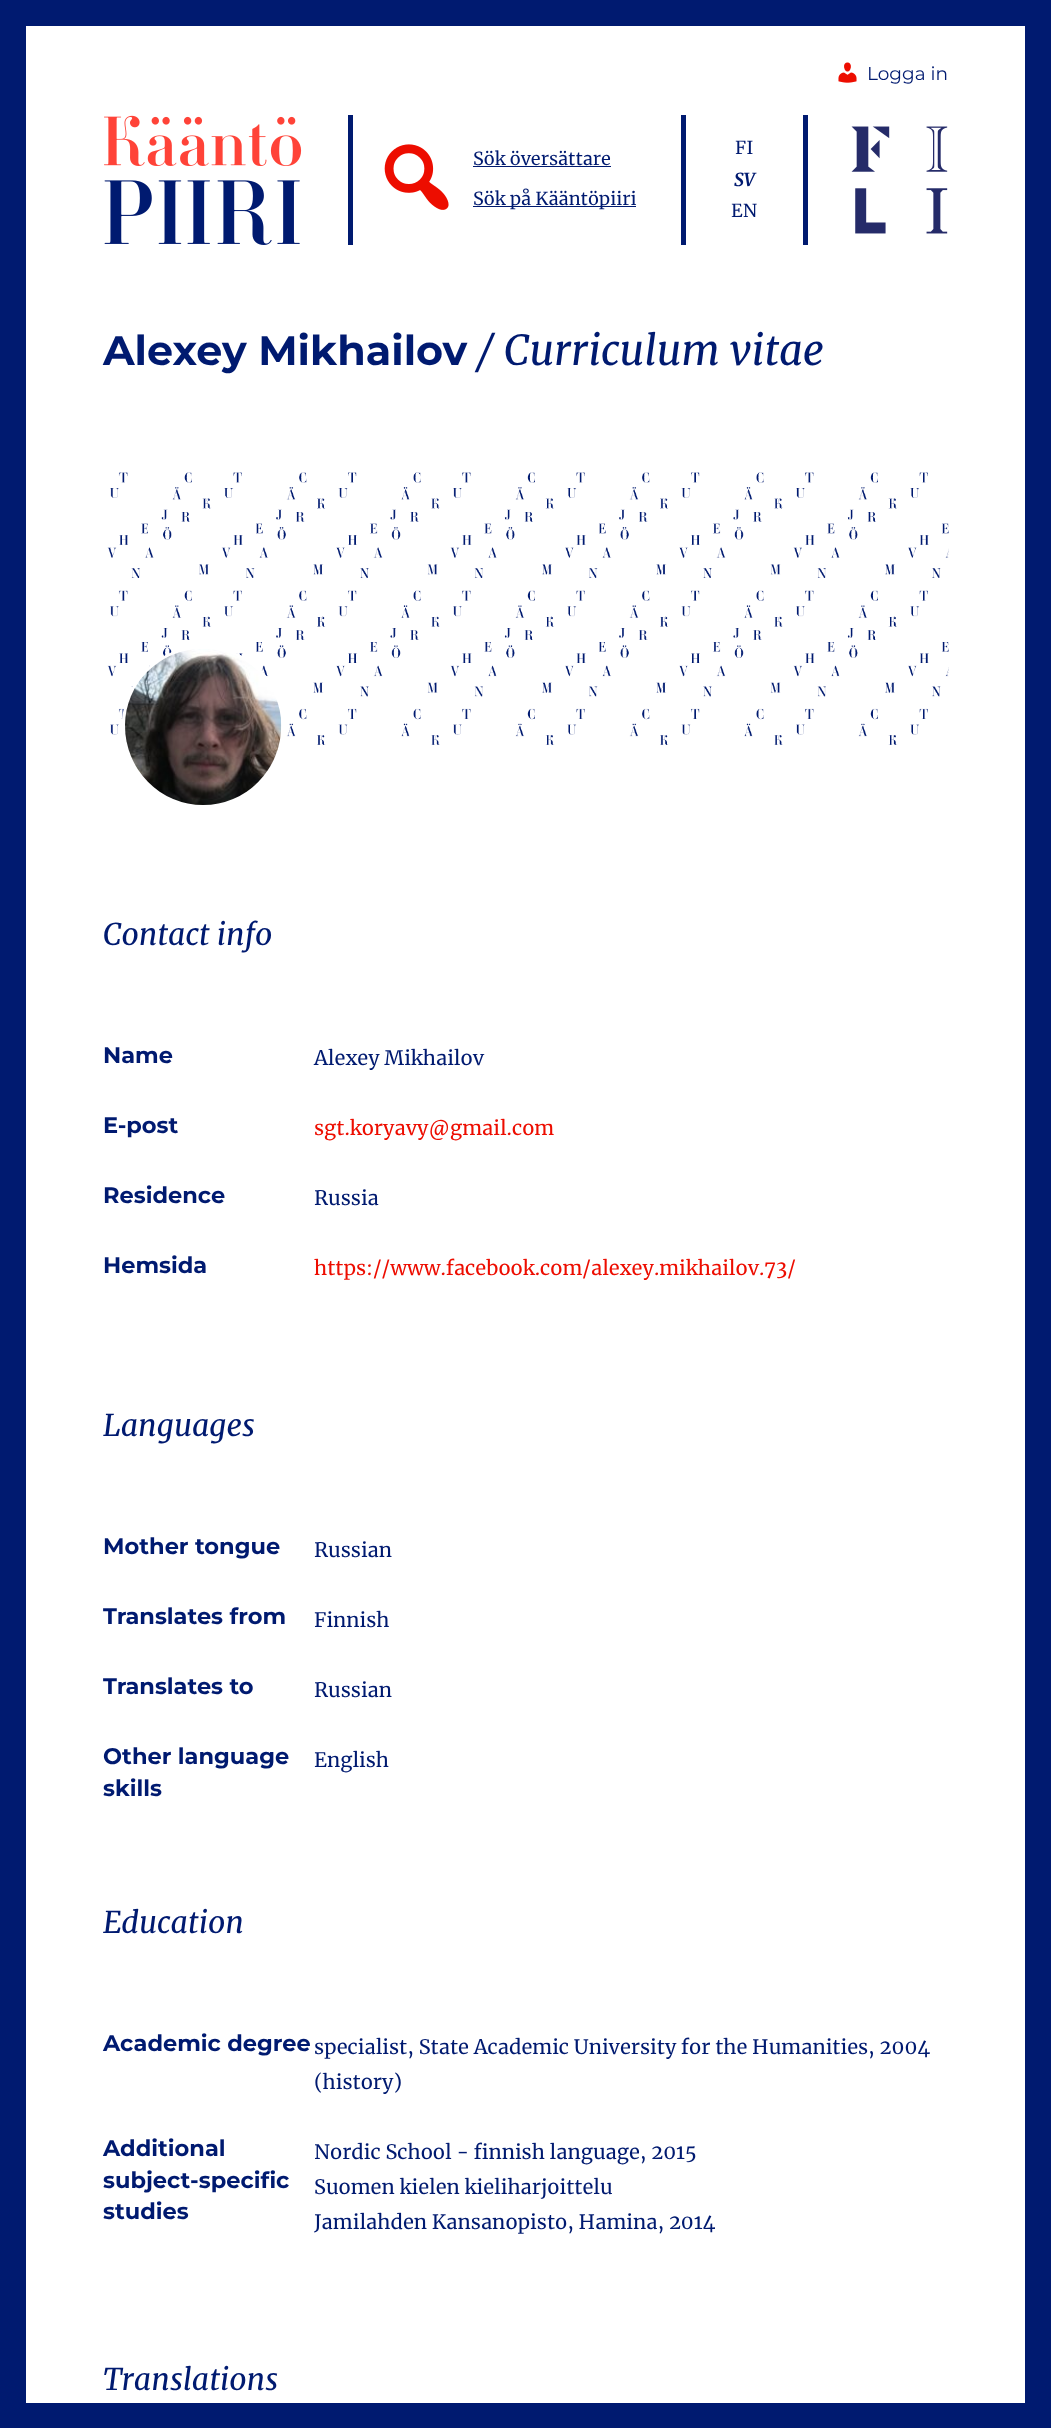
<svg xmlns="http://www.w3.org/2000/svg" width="1051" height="2428">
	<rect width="100%" height="100%" fill="#001A70" />
	<rect x="26" y="26" width="999" height="2377" fill="#FFFFFF" />
	<image x="838" y="62" width="19" height="21" href="assets/img1.png" />
	<text x="867" y="80" font-family="Montserrat" font-size="18.5" font-weight="100" fill="#001A70">Logga in</text>
	<image x="104" y="115" width="198" height="130" href="assets/img2.png" />
	<rect x="348" y="115" width="5" height="130" fill="#001A70" />
	<image x="384" y="144" width="65" height="66" href="assets/img3.png" />
	<text x="473" y="165" font-family="Merriweather" font-size="18" fill="#001A70">Sök översättare</text>
	<rect x="473" y="166" width="138" height="1" fill="#001A70" />
	<rect x="473" y="206" width="163" height="1" fill="#001A70" />
	<text x="473" y="205" font-family="Merriweather" font-size="18" fill="#001A70">Sök på Kääntöpiiri</text>
	<rect x="681" y="115" width="5" height="130" fill="#001A70" />
	<text x="735" y="154" font-family="Merriweather" font-size="18" fill="#001A70">FI</text>
	<text x="734" y="186" font-family="Merriweather" font-size="18" font-weight="700" font-style="italic" fill="#001A70">SV</text>
	<text x="731" y="217" font-family="Merriweather" font-size="18" fill="#001A70">EN</text>
	<rect x="803" y="115" width="5" height="130" fill="#001A70" />
	<image x="851" y="126" width="97" height="108" href="assets/img4.png" />
	<text x="103" y="365" font-family="'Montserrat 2'" font-size="41.25" font-weight="100" fill="#001A70">Alexey Mikhailov</text>
	<text x="477" y="365" font-family="Merriweather" font-size="41.25" font-style="italic" fill="#001A70">/ Curriculum vitae</text>
	<image x="107" y="472" width="842" height="273" href="assets/img5.png" />
	<ellipse cx="203" cy="725.5" rx="80.5" ry="79.5" fill="#FFFFFF" fill-opacity="0.8" />
	<path d="M203 646C248 646 284 682 284 726C284 769 248 805 203 805C159 805 122 769 122 726C122 682 159 646 203 646ZM203 649C246 649 281 683 281 726C281 769 246 805 203 805C160 805 125 769 125 726C125 683 160 649 203 649Z" fill="#FFFFFF" fill-rule="evenodd" />
	<image x="125" y="649" width="157" height="156" href="assets/img6.png" />
	<text x="103" y="945" font-family="Merriweather" font-size="30" font-style="italic" fill="#001A70">Contact info</text>
	<text x="103" y="1063" font-family="'Montserrat 2'" font-size="22.5" font-weight="100" fill="#001A70">Name</text>
	<text x="314" y="1065" font-family="Merriweather" font-size="20" fill="#001A70">Alexey Mikhailov</text>
	<text x="103" y="1133" font-family="'Montserrat 2'" font-size="22.5" font-weight="100" fill="#001A70">E-post</text>
	<text x="314" y="1135" font-family="Merriweather" font-size="20" fill="#ED0D00">sgt.koryavy@gmail.com</text>
	<text x="103" y="1203" font-family="'Montserrat 2'" font-size="22.5" font-weight="100" fill="#001A70">Residence</text>
	<text x="314" y="1205" font-family="Merriweather" font-size="20" fill="#001A70">Russia</text>
	<text x="103" y="1273" font-family="'Montserrat 2'" font-size="22.5" font-weight="100" fill="#001A70">Hemsida</text>
	<text x="314" y="1275" font-family="Merriweather" font-size="20" fill="#ED0D00">https://www.facebook.com/alexey.mikhailov.73/</text>
	<text x="103" y="1436" font-family="Merriweather" font-size="30" font-style="italic" fill="#001A70">Languages</text>
	<text x="103" y="1554" font-family="'Montserrat 2'" font-size="22.5" font-weight="100" fill="#001A70">Mother tongue</text>
	<text x="314" y="1557" font-family="Merriweather" font-size="20" fill="#001A70">Russian</text>
	<text x="103" y="1624" font-family="'Montserrat 2'" font-size="22.5" font-weight="100" fill="#001A70">Translates from</text>
	<text x="314" y="1627" font-family="Merriweather" font-size="20" fill="#001A70">Finnish</text>
	<text x="103" y="1694" font-family="'Montserrat 2'" font-size="22.5" font-weight="100" fill="#001A70">Translates to</text>
	<text x="314" y="1697" font-family="Merriweather" font-size="20" fill="#001A70">Russian</text>
	<g font-family="'Montserrat 2'" font-size="22.5" font-weight="100" fill="#001A70">
		<text x="103" y="1764">Other language</text>
		<text x="103" y="1796">skills</text>
	</g>
	<text x="314" y="1767" font-family="Merriweather" font-size="20" fill="#001A70">English</text>
	<text x="103" y="1933" font-family="Merriweather" font-size="30" font-style="italic" fill="#001A70">Education</text>
	<text x="103" y="2051" font-family="'Montserrat 2'" font-size="22.5" font-weight="100" fill="#001A70">Academic degree</text>
	<g font-family="Merriweather" font-size="20" fill="#001A70">
		<text x="314" y="2054">specialist, State Academic University for the Humanities, 2004</text>
		<text x="314" y="2089">(history)</text>
	</g>
	<g font-family="'Montserrat 2'" font-size="22.5" font-weight="100" fill="#001A70">
		<text x="103" y="2156">Additional</text>
		<text x="103" y="2188">subject-specific</text>
		<text x="103" y="2219">studies</text>
	</g>
	<g font-family="Merriweather" font-size="20" fill="#001A70">
		<text x="314" y="2159">Nordic School - finnish language, 2015</text>
		<text x="314" y="2194">Suomen kielen kieliharjoittelu</text>
		<text x="314" y="2229">Jamilahden Kansanopisto, Hamina, 2014</text>
	</g>
	<text x="103" y="2390" font-family="Merriweather" font-size="30" font-style="italic" fill="#001A70">Translations</text>
</svg>
